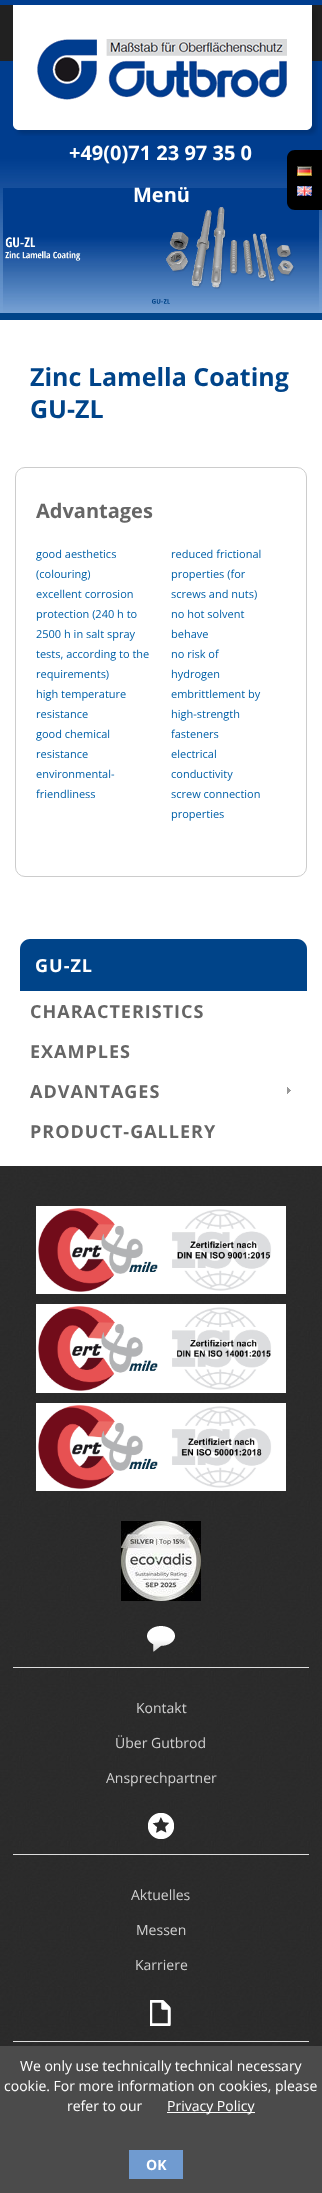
<svg xmlns="http://www.w3.org/2000/svg" width="322" height="2193">
	<rect width="100%" height="100%" fill="#FFFFFF" />
	<rect x="0" y="0" width="322" height="5" fill="#003D8F" />
	<image x="0" y="5" width="322" height="308" href="assets/img1.png" />
	<rect x="0" y="313" width="322" height="7" fill="#004489" />
	<image x="13" y="5" width="305" height="131" href="assets/img2.png" />
	<text x="69" y="160" font-family="Open Sans" font-size="20" font-weight="700" fill="#FFFFFF">+49(0)71 23 97 35 0</text>
	<image x="3" y="188" width="316" height="125" href="assets/img5.png" />
	<path d="M295 150H322V210H295C290.5 210 287 206.5 287 202V158C287 153.5 290.5 150 295 150Z" fill="#000000" />
	<image x="297" y="166" width="15" height="10" href="assets/img3.png" />
	<image x="297" y="186" width="15" height="10" href="assets/img4.png" />
	<text x="133" y="202" font-family="Open Sans" font-size="20" font-weight="700" fill="#FFFFFF">Menü</text>
	<g font-family="Open Sans" font-size="25" font-weight="700" fill="#004489">
		<text x="30" y="386">Zinc Lamella Coating</text>
		<text x="30" y="418">GU-ZL</text>
	</g>
	<rect x="15.5" y="467.5" width="291" height="409" rx="9.5" fill="none" stroke="#CCCCCC" />
	<text x="36" y="518" font-family="Open Sans" font-size="20" font-weight="700" fill="#666666">Advantages</text>
	<g font-family="Open Sans" font-size="11" fill="#0060A8">
		<text x="36" y="558">good aesthetics</text>
		<text x="36" y="578">(colouring)</text>
		<text x="36" y="598">excellent corrosion</text>
		<text x="36" y="618">protection (240 h to</text>
		<text x="36" y="638">2500 h in salt spray</text>
		<text x="36" y="658">tests, according to the</text>
		<text x="36" y="678">requirements)</text>
		<text x="36" y="698">high temperature</text>
		<text x="36" y="718">resistance</text>
		<text x="36" y="738">good chemical</text>
		<text x="36" y="758">resistance</text>
		<text x="36" y="778">environmental-</text>
		<text x="36" y="798">friendliness</text>
		<text x="171" y="558">reduced frictional</text>
		<text x="171" y="578">properties (for</text>
		<text x="171" y="598">screws and nuts)</text>
		<text x="171" y="618">no hot solvent</text>
		<text x="171" y="638">behave</text>
		<text x="171" y="658">no risk of</text>
		<text x="171" y="678">hydrogen</text>
		<text x="171" y="698">embrittlement by</text>
		<text x="171" y="718">high-strength</text>
		<text x="171" y="738">fasteners</text>
		<text x="171" y="758">electrical</text>
		<text x="171" y="778">conductivity</text>
		<text x="171" y="798">screw connection</text>
		<text x="171" y="818">properties</text>
	</g>
	<path d="M30 939H297C302.5 939 307 943.5 307 949V991H20V949C20 943.5 24.5 939 30 939Z" fill="#004489" />
	<text x="35" y="972" font-family="Open Sans" font-size="18" font-weight="700" letter-spacing="1" fill="#FFFFFF">GU-ZL</text>
	<g font-family="Open Sans" font-size="18" font-weight="700" letter-spacing="1" fill="#666666">
		<text x="30" y="1018">CHARACTERISTICS</text>
		<text x="30" y="1058">EXAMPLES</text>
	</g>
	<image x="287" y="1087" width="4" height="7" href="assets/img6.png" />
	<g font-family="Open Sans" font-size="18" font-weight="700" letter-spacing="1" fill="#666666">
		<text x="30" y="1098">ADVANTAGES</text>
		<text x="30" y="1138">PRODUCT-GALLERY</text>
	</g>
	<image x="0" y="1166" width="322" height="880" href="assets/img7.png" />
	<image x="36" y="1206" width="250" height="88" href="assets/img8.png" />
	<image x="36" y="1304" width="250" height="89" href="assets/img9.png" />
	<image x="36" y="1403" width="250" height="88" href="assets/img10.png" />
	<image x="121" y="1521" width="80" height="80" href="assets/img11.png" />
	<image x="147" y="1626" width="28" height="26" href="assets/img12.png" />
	<rect x="13" y="1667" width="296" height="1" fill="#DDDDDD" />
	<g font-family="Open Sans" font-size="14" fill="#D0D0D0">
		<text x="136" y="1713">Kontakt</text>
		<text x="115" y="1748">Über Gutbrod</text>
		<text x="106" y="1783">Ansprechpartner</text>
	</g>
	<image x="148" y="1813" width="26" height="26" href="assets/img13.png" />
	<rect x="13" y="1854" width="296" height="1" fill="#DDDDDD" />
	<g font-family="Open Sans" font-size="14" fill="#D0D0D0">
		<text x="131" y="1900">Aktuelles</text>
		<text x="136" y="1935">Messen</text>
		<text x="135" y="1970">Karriere</text>
	</g>
	<image x="150" y="2000" width="21" height="26" href="assets/img14.png" />
	<rect x="13" y="2041" width="296" height="1" fill="#DDDDDD" />
	<rect x="0" y="2046" width="322" height="147" fill="#4B4B4B" />
	<g font-family="Open Sans" font-size="14" fill="#FFFFFF">
		<text x="20" y="2071">We only use technically technical necessary</text>
		<text x="4" y="2091">cookie. For more information on cookies, please</text>
		<text x="67" y="2111">refer to our</text>
	</g>
	<rect x="167" y="2112" width="88" height="1" fill="#FFFFFF" />
	<text x="167" y="2111" font-family="Open Sans" font-size="14" fill="#FFFFFF">Privacy Policy</text>
	<rect x="129" y="2150" width="54" height="29" fill="#709BD0" />
	<text x="146" y="2170" font-family="Open Sans" font-size="14" font-weight="700" fill="#FFFFFF">OK</text>
</svg>
